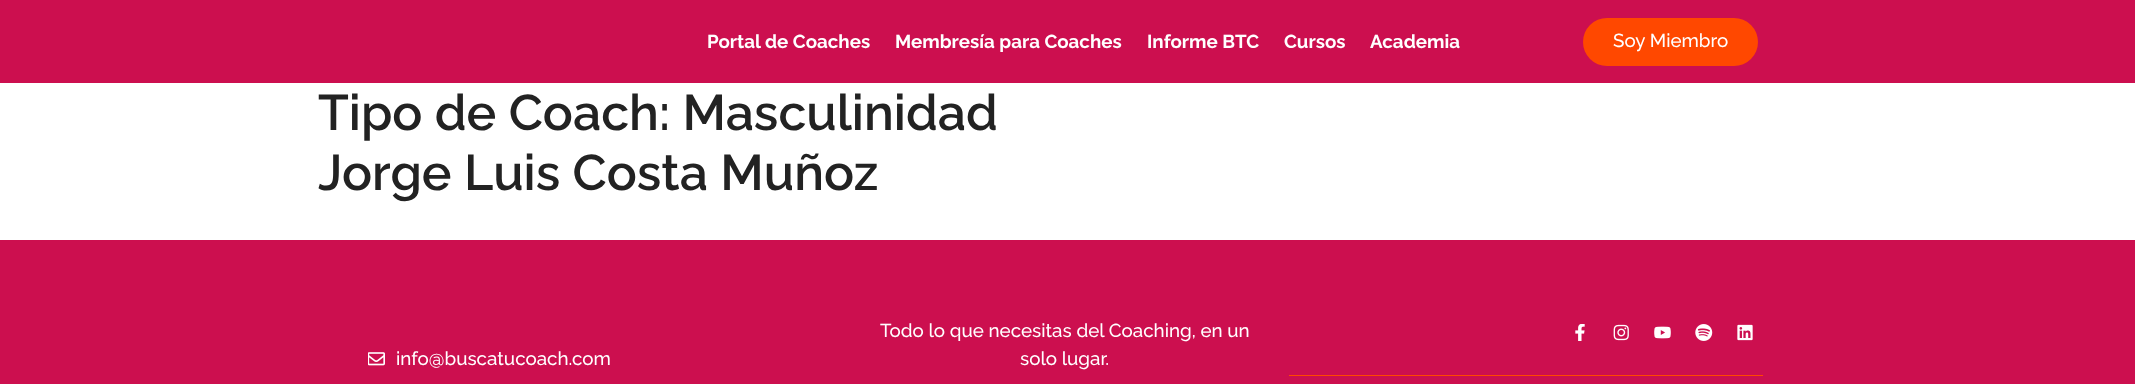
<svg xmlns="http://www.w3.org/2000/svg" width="2135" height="384">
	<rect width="100%" height="100%" fill="#FFFFFF" />
	<rect x="0" y="0" width="2135" height="83" fill="#CC0F4F" />
	<g font-family="Raleway" font-size="18.75" font-weight="700" fill="#FFFFFF">
		<text x="707" y="48">Portal de Coaches</text>
		<text x="895" y="48">Membresía para Coaches</text>
		<text x="1147" y="48">Informe BTC</text>
		<text x="1284" y="48">Cursos</text>
		<text x="1370" y="48">Academia</text>
	</g>
	<rect x="1583" y="18" width="175" height="48" rx="24" fill="#FF4800" />
	<text x="1613" y="47" font-family="Raleway" font-size="18.75" font-weight="500" fill="#FFFFFF">Soy Miembro</text>
	<g font-family="Raleway" font-size="50" font-weight="600" fill="#222222">
		<text x="318" y="130">Tipo de Coach: Masculinidad</text>
		<text x="318" y="190">Jorge Luis Costa Muñoz</text>
	</g>
	<rect x="0" y="240" width="2135" height="144" fill="#CC0F4F" />
	<image x="368" y="352" width="17" height="14" href="assets/img1.png" />
	<g font-family="Raleway" font-size="18.75" font-weight="500" fill="#FFFFFF">
		<text x="396" y="365">info@buscatucoach.com</text>
		<text x="880" y="337">Todo lo que necesitas del Coaching, en un</text>
		<text x="1020" y="365">solo lugar.</text>
	</g>
	<image x="1575" y="324" width="10" height="17" href="assets/img2.png" />
	<image x="1613" y="324" width="16" height="17" href="assets/img3.png" />
	<image x="1654" y="326" width="17" height="13" href="assets/img4.png" />
	<image x="1695" y="324" width="18" height="17" href="assets/img5.png" />
	<image x="1737" y="324" width="16" height="17" href="assets/img6.png" />
	<rect x="1289" y="375" width="474" height="1" fill="#FF4800" />
</svg>
